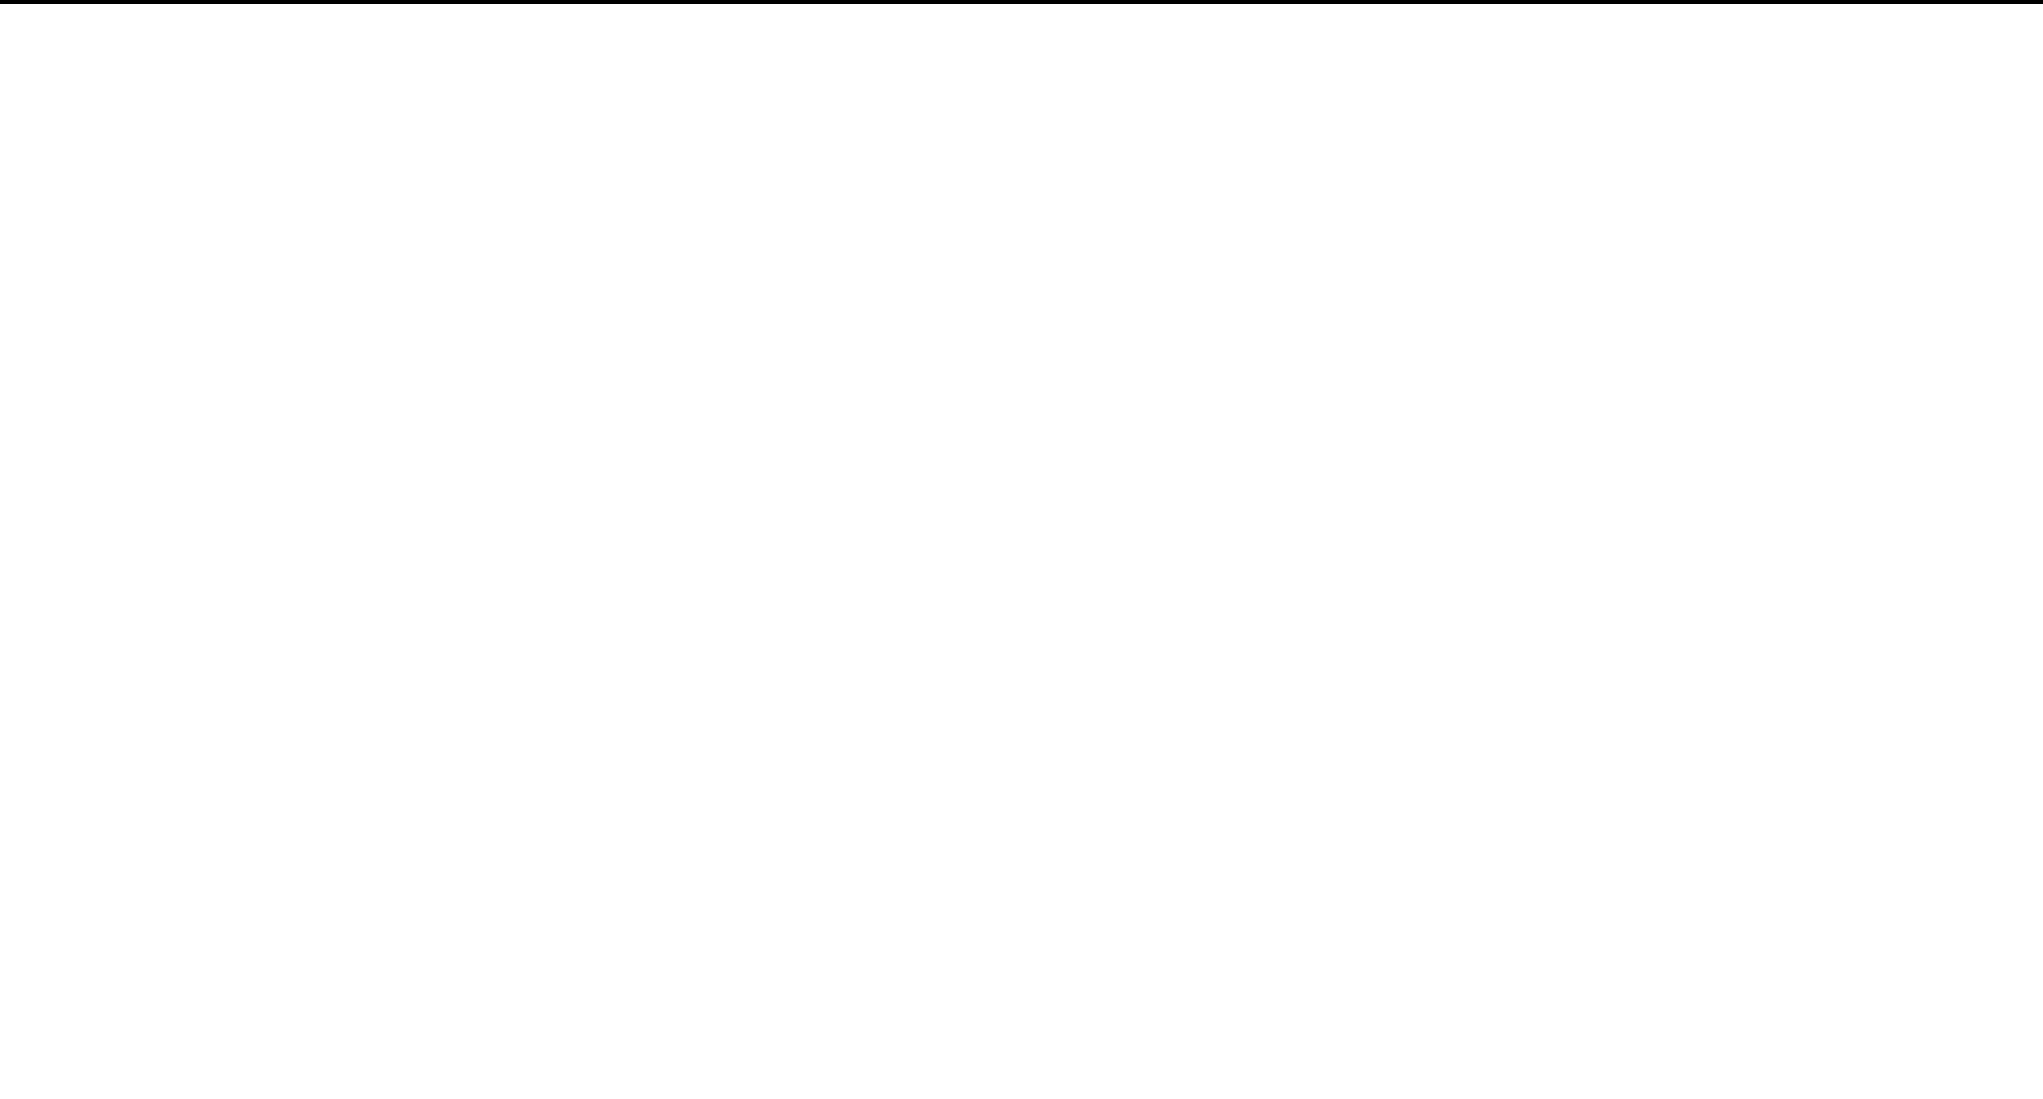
<svg xmlns="http://www.w3.org/2000/svg" width="2043" height="1099">
	<rect width="100%" height="100%" fill="#FFFFFF" />
	<rect x="0" y="0" width="2043" height="4" fill="#000000" />
</svg>
